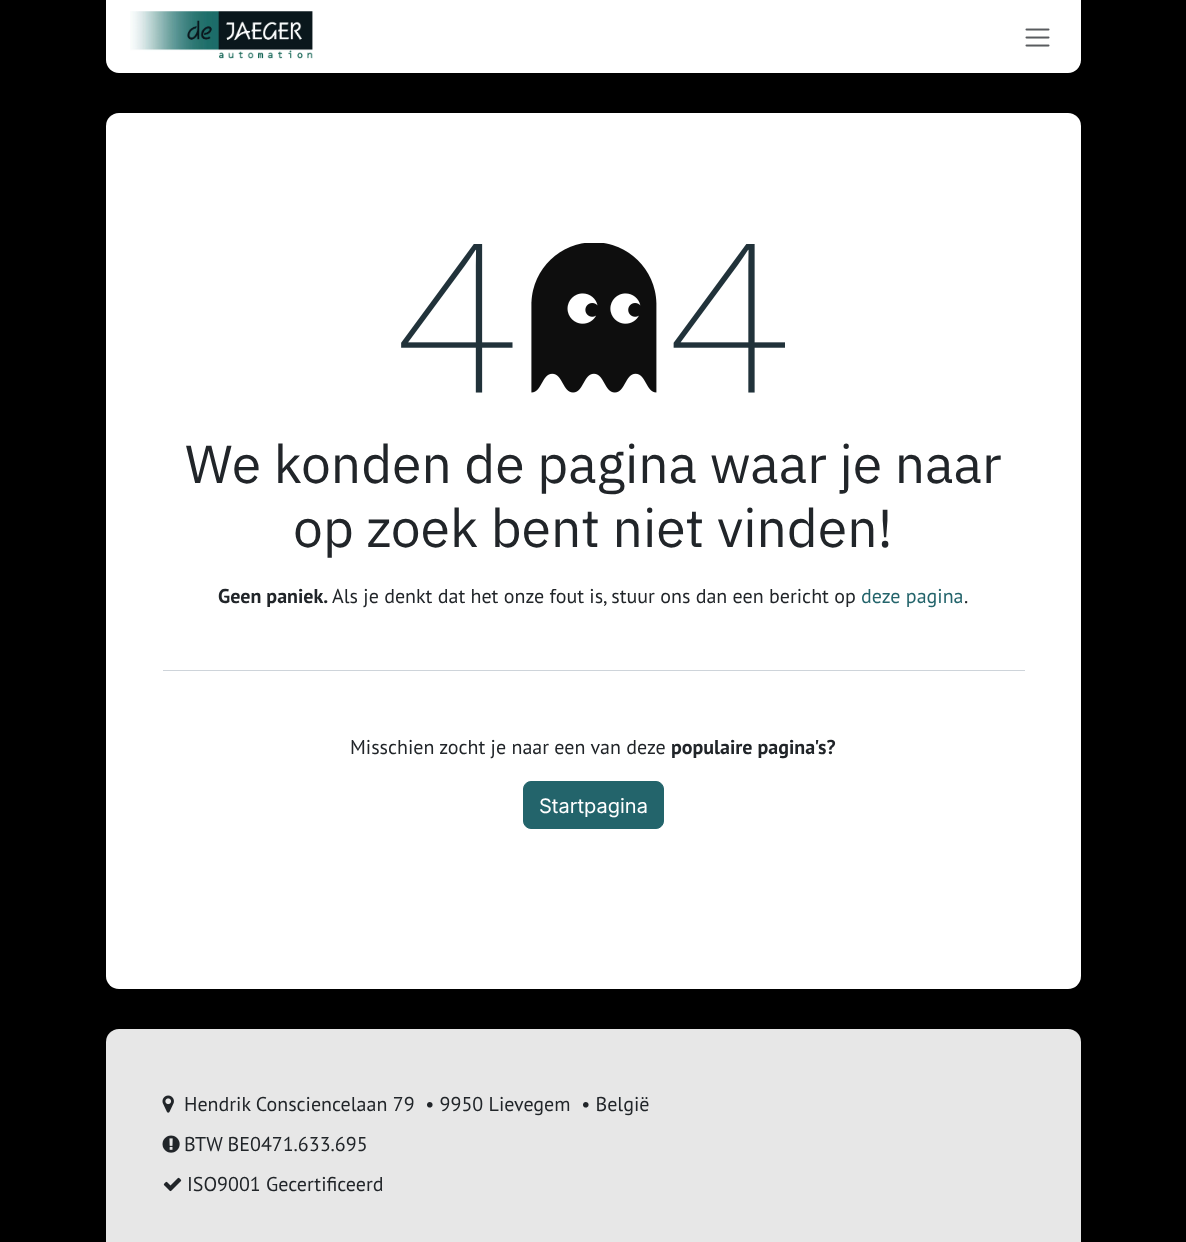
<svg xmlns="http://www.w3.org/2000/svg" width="1186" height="1242">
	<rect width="100%" height="100%" fill="#000000" />
	<path d="M106 0H1081V60C1081 67 1075 73 1068 73H119C112 73 106 67 106 60Z" fill="#FFFFFF" />
	<image x="130" y="11" width="183" height="48" href="assets/img1.png" />
	<image x="1025" y="28" width="25" height="19" href="assets/img2.png" />
	<rect x="106" y="113" width="975" height="876" rx="13" fill="#FFFFFF" />
	<image x="401" y="243" width="384" height="150" href="assets/img3.png" />
	<g font-family="IBM Plex Sans" font-size="53.4" fill="#212529">
		<text x="185" y="483">We konden de pagina waar je naar</text>
		<text x="293" y="547">op zoek bent niet vinden!</text>
	</g>
	<text x="218" y="603" font-family="PT Sans" font-size="20" font-weight="700" fill="#212529">Geen paniek.</text>
	<text x="332" y="603" font-family="PT Sans" font-size="20" fill="#212529">Als je denkt dat het onze fout is, stuur ons dan een bericht op</text>
	<text x="861" y="603" font-family="PT Sans" font-size="20" fill="#23646B">deze pagina</text>
	<text x="964" y="603" font-family="PT Sans" font-size="20" fill="#212529">.</text>
	<rect x="163" y="670" width="862" height="1" fill="#CED4DA" />
	<text x="350" y="754" font-family="PT Sans" font-size="20" fill="#212529">Misschien zocht je naar een van deze</text>
	<text x="671" y="754" font-family="PT Sans" font-size="20" font-weight="700" fill="#212529">populaire pagina's?</text>
	<rect x="523.5" y="781.5" width="140" height="47" rx="7.5" fill="#23646B" stroke="#23646B" />
	<text x="539" y="813" font-family="Inter" font-size="20" fill="#FFFFFF">Startpagina</text>
	<rect x="106" y="1029" width="975" height="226" rx="13" fill="#E7E7E7" />
	<image x="162" y="1095" width="12" height="18" href="assets/img4.png" />
	<text x="184" y="1111" font-family="PT Sans" font-size="20" fill="#212529" xml:space="preserve">Hendrik Consciencelaan 79  • 9950 Lievegem  • België</text>
	<image x="162" y="1135" width="18" height="18" href="assets/img5.png" />
	<text x="184" y="1151" font-family="PT Sans" font-size="20" fill="#212529">BTW BE0471.633.695</text>
	<image x="163" y="1177" width="19" height="15" href="assets/img6.png" />
	<text x="187" y="1191" font-family="PT Sans" font-size="20" fill="#212529">ISO9001 Gecertificeerd</text>
</svg>
